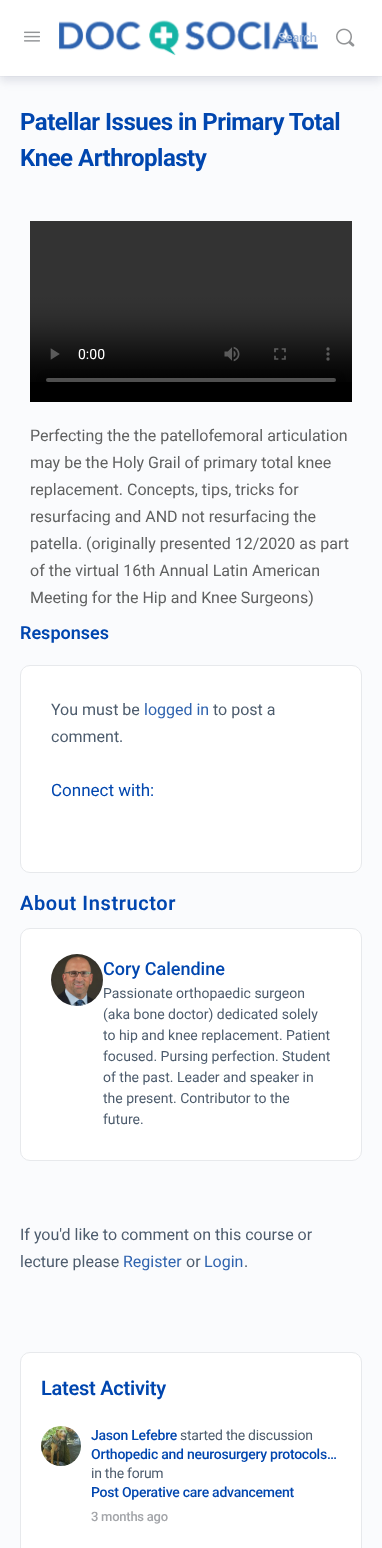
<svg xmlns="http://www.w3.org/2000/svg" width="382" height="1548">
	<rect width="100%" height="100%" fill="#FAFBFD" />
	<rect x="0" y="5" width="382" height="76" fill="#41476C" fill-opacity="0.15" filter="blur(5px)" />
	<rect x="0" y="76" width="382" height="1" fill="#8B8D9D" fill-opacity="0.05" />
	<rect x="0" y="0" width="382" height="76" fill="#FFFFFF" />
	<image x="24" y="31" width="16" height="11" href="assets/img1.png" />
	<image x="59" y="20" width="259" height="36" href="assets/img2.png" />
	<text x="278" y="42" font-family="Roboto" font-size="13" font-weight="500" letter-spacing="-0.25" fill="#A4BBDC">Search</text>
	<image x="336" y="28" width="19" height="19" href="assets/img3.png" />
	<g font-family="Roboto" font-size="24" font-weight="700" letter-spacing="-0.5" fill="#0046AF">
		<text x="20" y="130">Patellar Issues in Primary Total</text>
		<text x="20" y="166">Knee Arthroplasty</text>
	</g>
	<rect x="30" y="382" width="322" height="20" fill="#000000" />
	<image x="30" y="221" width="322" height="161" href="assets/img4.png" />
	<g font-family="Roboto" font-size="16" fill="#606161">
		<text x="30" y="441">Perfecting the the patellofemoral articulation</text>
		<text x="30" y="468">may be the Holy Grail of primary total knee</text>
		<text x="30" y="495">replacement. Concepts, tips, tricks for</text>
		<text x="30" y="522">resurfacing and AND not resurfacing the</text>
		<text x="30" y="549">patella. (originally presented 12/2020 as part</text>
		<text x="30" y="576">of the virtual 16th Annual Latin American</text>
		<text x="30" y="603">Meeting for the Hip and Knee Surgeons)</text>
	</g>
	<text x="20" y="639" font-family="Roboto" font-size="18" font-weight="600" fill="#0046AF">Responses</text>
	<rect x="20.5" y="665.5" width="341" height="207" rx="9.5" fill="#FFFFFF" stroke="#E7E9EC" />
	<text x="51" y="715" font-family="Roboto" font-size="16" fill="#4D5C6D">You must be</text>
	<text x="144" y="715" font-family="Roboto" font-size="16" fill="#2F63AF">logged in</text>
	<g font-family="Roboto" font-size="16" fill="#4D5C6D">
		<text x="213" y="715">to post a</text>
		<text x="51" y="742">comment.</text>
	</g>
	<text x="51" y="796" font-family="Roboto" font-size="17" fill="#0046AF">Connect with:</text>
	<text x="20" y="910" font-family="Roboto" font-size="20" font-weight="600" letter-spacing="0.6" fill="#0046AF">About Instructor</text>
	<rect x="20.5" y="928.5" width="341" height="232" rx="9.5" fill="#FFFFFF" stroke="#E7E9EC" />
	<image x="51" y="954" width="52" height="52" href="assets/img5.png" />
	<text x="103" y="975" font-family="Roboto" font-size="18" font-weight="500" fill="#0046AF">Cory Calendine</text>
	<g font-family="Roboto" font-size="14" fill="#4D5C6D">
		<text x="103" y="998">Passionate orthopaedic surgeon</text>
		<text x="103" y="1019">(aka bone doctor) dedicated solely</text>
		<text x="103" y="1040">to hip and knee replacement. Patient</text>
		<text x="103" y="1061">focused. Pursing perfection. Student</text>
		<text x="103" y="1082">of the past. Leader and speaker in</text>
		<text x="103" y="1103">the present. Contributor to the</text>
		<text x="103" y="1124">future.</text>
	</g>
	<g font-family="Roboto" font-size="16" fill="#4D5C6D">
		<text x="20" y="1240">If you'd like to comment on this course or</text>
		<text x="20" y="1267">lecture please</text>
	</g>
	<text x="123" y="1267" font-family="Roboto" font-size="16" fill="#2F63AF">Register</text>
	<text x="186" y="1267" font-family="Roboto" font-size="16" fill="#4D5C6D">or</text>
	<text x="204" y="1267" font-family="Roboto" font-size="16" fill="#2F63AF">Login</text>
	<text x="244" y="1267" font-family="Roboto" font-size="16" fill="#4D5C6D">.</text>
	<rect x="20.5" y="1352.5" width="341" height="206" rx="9.5" fill="#FFFFFF" stroke="#E7E9EC" />
	<text x="41" y="1395" font-family="Roboto" font-size="20" font-weight="600" letter-spacing="-0.25" fill="#0046AF">Latest Activity</text>
	<image x="41" y="1426" width="40" height="40" href="assets/img6.png" />
	<text x="91" y="1440" font-family="Roboto" font-size="14" font-weight="500" letter-spacing="-0.25" fill="#0046AF">Jason Lefebre</text>
	<text x="180" y="1440" font-family="Roboto" font-size="14" letter-spacing="-0.25" fill="#4D5C6D">started the discussion</text>
	<text x="91" y="1459" font-family="Roboto" font-size="14" font-weight="500" letter-spacing="-0.25" fill="#0046AF">Orthopedic and neurosurgery protocols…</text>
	<text x="91" y="1478" font-family="Roboto" font-size="14" letter-spacing="-0.25" fill="#4D5C6D">in the forum</text>
	<text x="91" y="1497" font-family="Roboto" font-size="14" font-weight="500" letter-spacing="-0.25" fill="#0046AF">Post Operative care advancement</text>
	<text x="91" y="1521" font-family="Roboto" font-size="13" font-weight="500" letter-spacing="-0.25" fill="#A3A5A9">3 months ago</text>
</svg>
